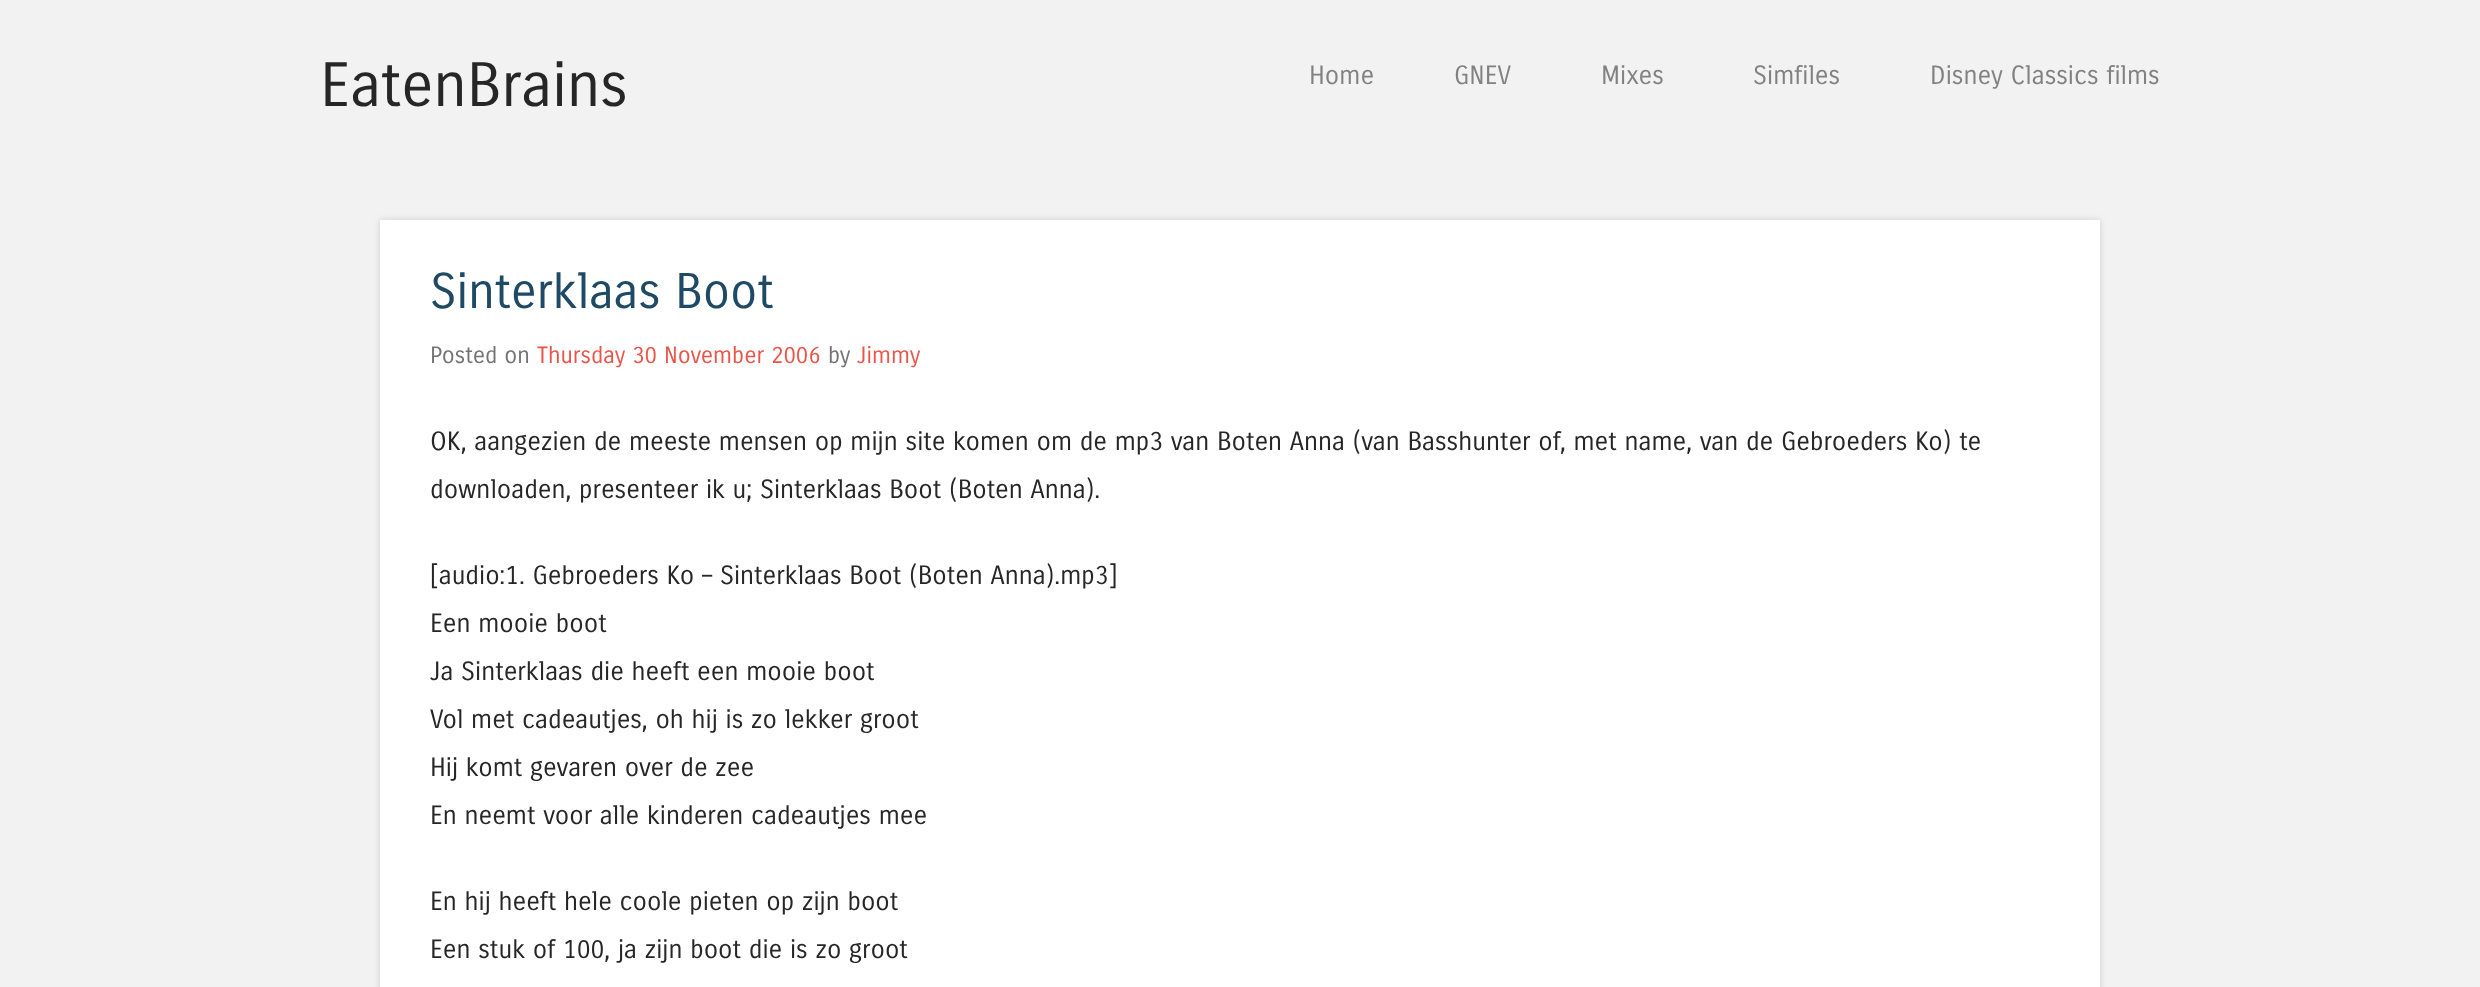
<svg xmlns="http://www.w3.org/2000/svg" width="2480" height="987">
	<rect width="100%" height="100%" fill="#F2F2F2" />
	<text x="320" y="106" font-family="Carrois Gothic" font-size="60.75" fill="#262626">EatenBrains</text>
	<g font-family="Carrois Gothic" font-size="25.6" fill="#818181">
		<text x="1309" y="84">Home</text>
		<text x="1454" y="84">GNEV</text>
		<text x="1601" y="84">Mixes</text>
		<text x="1753" y="84">Simfiles</text>
		<text x="1930" y="84">Disney Classics films</text>
	</g>
	<rect x="380" y="220" width="1720" height="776" fill="#646464" fill-opacity="0.25" filter="blur(3px)" />
	<rect x="380" y="220" width="1720" height="767" fill="#FFFFFF" />
	<text x="430" y="308" font-family="Carrois Gothic" font-size="48.5" fill="#1E4A66">Sinterklaas Boot</text>
	<text x="430" y="363" font-family="Carrois Gothic" font-size="23" fill="#737373">Posted on</text>
	<text x="537" y="363" font-family="Carrois Gothic" font-size="23" fill="#EA5449">Thursday 30 November 2006</text>
	<text x="828" y="363" font-family="Carrois Gothic" font-size="23" fill="#737373">by</text>
	<text x="857" y="363" font-family="Carrois Gothic" font-size="23" fill="#EA5449">Jimmy</text>
	<g font-family="Carrois Gothic" font-size="25.6" fill="#262626">
		<text x="430" y="450">OK, aangezien de meeste mensen op mijn site komen om de mp3 van Boten Anna (van Basshunter of, met name, van de Gebroeders Ko) te</text>
		<text x="430" y="498">downloaden, presenteer ik u; Sinterklaas Boot (Boten Anna).</text>
		<text x="430" y="584">[audio:1. Gebroeders Ko – Sinterklaas Boot (Boten Anna).mp3]</text>
		<text x="430" y="632">Een mooie boot</text>
		<text x="430" y="680">Ja Sinterklaas die heeft een mooie boot</text>
		<text x="430" y="728">Vol met cadeautjes, oh hij is zo lekker groot</text>
		<text x="430" y="776">Hij komt gevaren over de zee</text>
		<text x="430" y="824">En neemt voor alle kinderen cadeautjes mee</text>
		<text x="430" y="910">En hij heeft hele coole pieten op zijn boot</text>
		<text x="430" y="958">Een stuk of 100, ja zijn boot die is zo groot</text>
	</g>
</svg>
